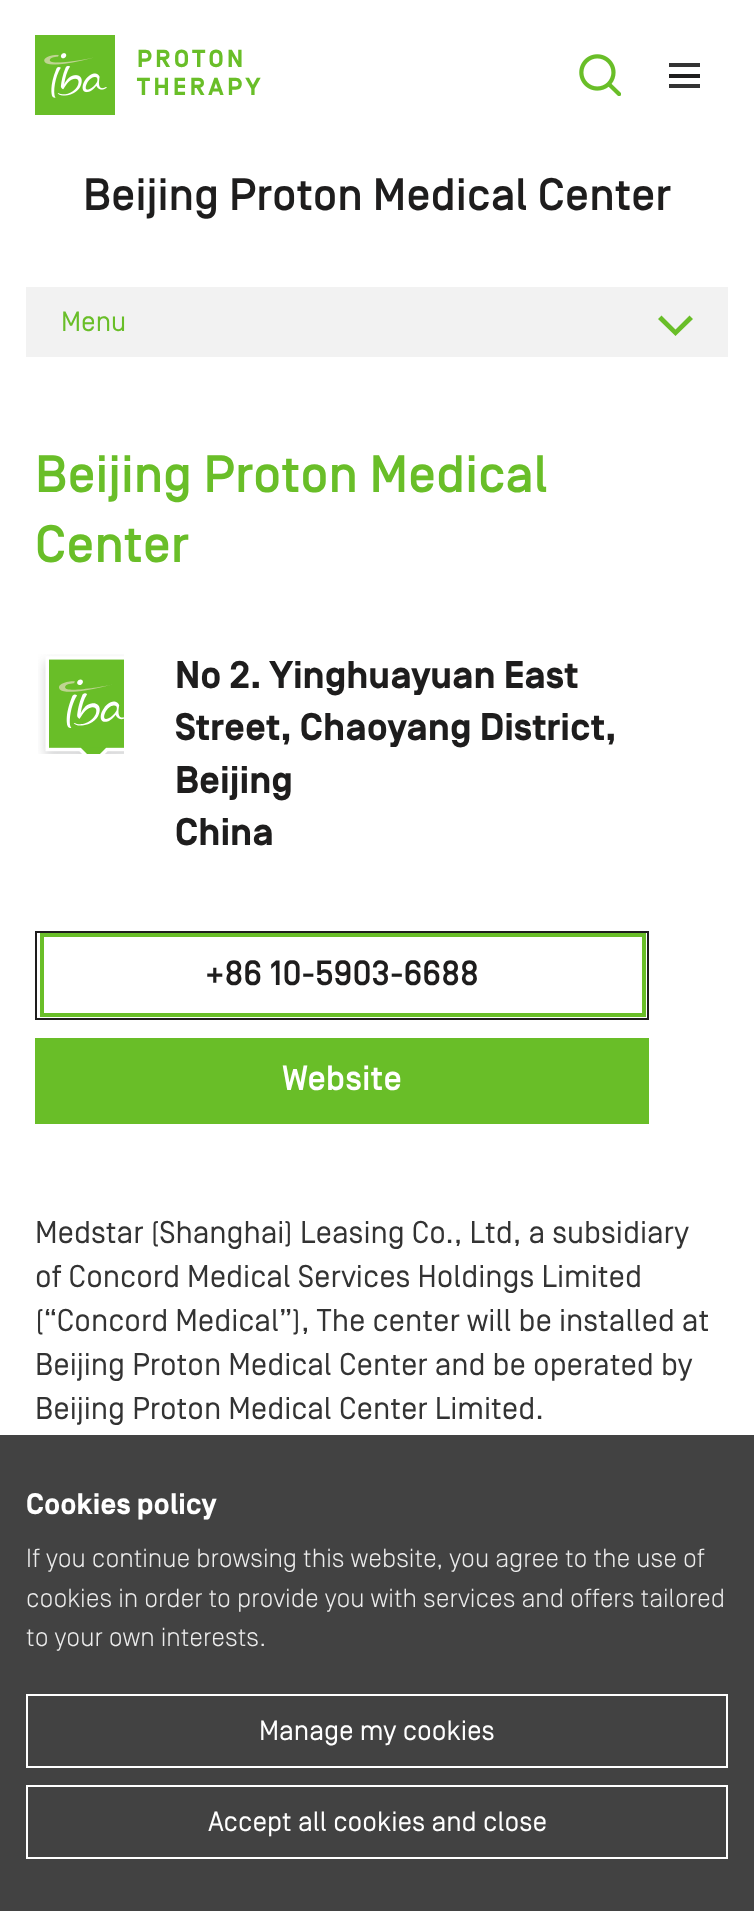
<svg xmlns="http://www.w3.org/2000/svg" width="754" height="1911">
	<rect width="100%" height="100%" fill="#FFFFFF" />
	<image x="35" y="35" width="80" height="80" href="assets/img1.png" />
	<g font-family="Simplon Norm" font-size="24.5" font-weight="700" letter-spacing="3.5" fill="#69BE28">
		<text x="137" y="67">PROTON</text>
		<text x="137" y="95">THERAPY</text>
	</g>
	<image x="579" y="54" width="42" height="42" href="assets/img2.png" />
	<rect x="669" y="74" width="31" height="4" fill="#1E1D1D" />
	<rect x="669" y="63" width="31" height="4" fill="#333333" />
	<rect x="669" y="84" width="31" height="4" fill="#333333" />
	<text x="83" y="210" font-family="Simplon Norm" font-size="45.5" font-weight="500" fill="#1E1D1D">Beijing Proton Medical Center</text>
	<rect x="26" y="287" width="702" height="70" fill="#F2F2F2" />
	<text x="61" y="331" font-family="Simplon Norm" font-size="28" fill="#69BE28">Menu</text>
	<path d="M693 319L675.5 336L658 319L661.5 315.5L675.5 329.5L689.5 315.5Z" fill="#69BE28" />
	<g font-family="Simplon Norm" font-size="52.5" font-weight="500" fill="#69BE28">
		<text x="35" y="492">Beijing Proton Medical</text>
		<text x="35" y="562">Center</text>
	</g>
	<image x="38" y="654" width="86" height="100" href="assets/img3.png" />
	<g font-family="Simplon Norm" font-size="38.5" font-weight="700" fill="#1E1D1D">
		<text x="175" y="688">No 2. Yinghuayuan East</text>
		<text x="175" y="740">Street, Chaoyang District,</text>
		<text x="175" y="793">Beijing</text>
		<text x="175" y="845">China</text>
	</g>
	<rect x="36" y="932" width="612" height="87" fill="none" stroke="#1E1D1D" stroke-width="2" />
	<rect x="42" y="935" width="602" height="80" fill="none" stroke="#69BE28" stroke-width="4" />
	<text x="205" y="985" font-family="Simplon Norm" font-size="35" font-weight="500" fill="#1E1D1D">+86 10-5903-6688</text>
	<rect x="35" y="1038" width="614" height="86" fill="#69BE28" />
	<text x="282" y="1090" font-family="Simplon Norm" font-size="35" font-weight="500" fill="#FFFFFF">Website</text>
	<g font-family="Simplon Norm" font-size="31.5" fill="#333333">
		<text x="35" y="1243">Medstar (Shanghai) Leasing Co., Ltd, a subsidiary</text>
		<text x="35" y="1287">of Concord Medical Services Holdings Limited</text>
		<text x="35" y="1331">(“Concord Medical”), The center will be installed at</text>
		<text x="35" y="1375">Beijing Proton Medical Center and be operated by</text>
		<text x="35" y="1419">Beijing Proton Medical Center Limited.</text>
	</g>
	<rect x="0" y="1435" width="754" height="476" fill="#424242" />
	<text x="26" y="1514" font-family="Simplon Norm" font-size="29.75" font-weight="700" fill="#FFFFFF">Cookies policy</text>
	<g font-family="Simplon Norm" font-size="26.25" font-weight="300" fill="#ECECEC">
		<text x="26" y="1567">If you continue browsing this website, you agree to the use of</text>
		<text x="26" y="1607">cookies in order to provide you with services and offers tailored</text>
		<text x="26" y="1646">to your own interests.</text>
	</g>
	<rect x="27" y="1695" width="700" height="72" fill="none" stroke="#FFFFFF" stroke-width="2" />
	<text x="259" y="1740" font-family="Simplon Norm" font-size="28" fill="#FFFFFF">Manage my cookies</text>
	<rect x="27" y="1786" width="700" height="72" fill="none" stroke="#FFFFFF" stroke-width="2" />
	<text x="208" y="1831" font-family="Simplon Norm" font-size="28" fill="#FFFFFF">Accept all cookies and close</text>
</svg>
